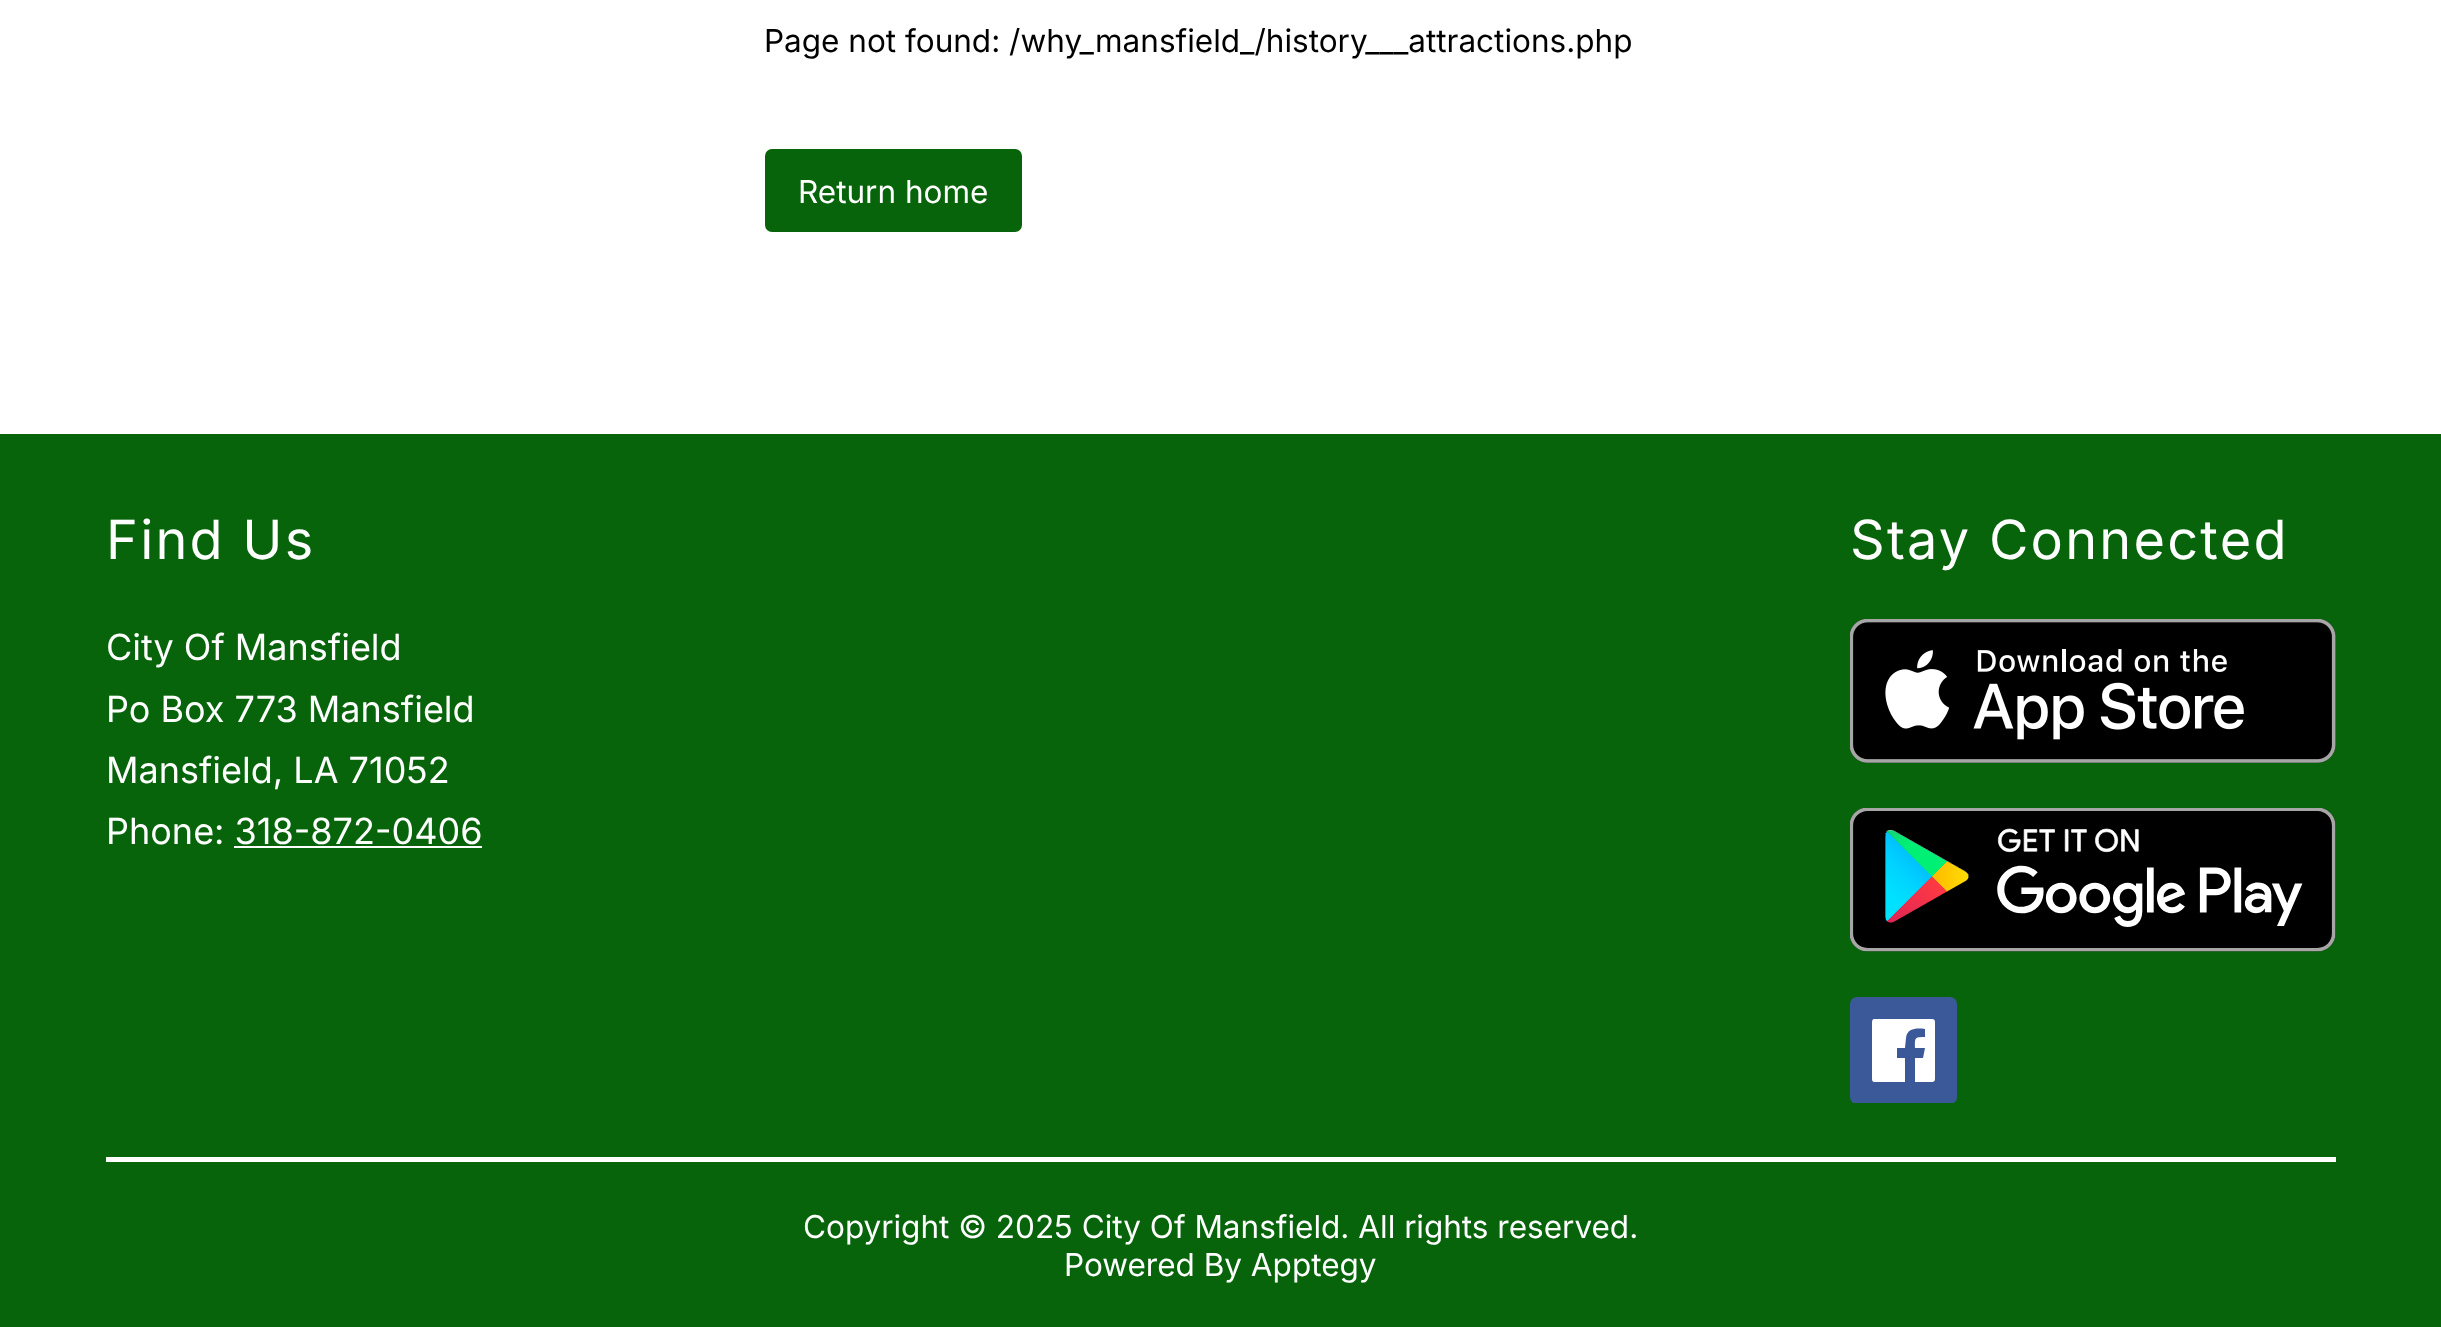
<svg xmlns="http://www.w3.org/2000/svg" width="2441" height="1327">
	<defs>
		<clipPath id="clip1"><rect x="1850" y="997" width="108" height="106" /></clipPath>
	</defs>
	<rect width="100%" height="100%" fill="#FFFFFF" />
	<text x="764" y="52" font-family="Inter" font-size="31.5" fill="#000000">Page not found: /why_mansfield_/history___attractions.php</text>
	<rect x="765" y="149" width="257" height="83" rx="7" fill="#07640B" />
	<text x="798" y="203" font-family="Inter" font-size="31.5" fill="#FFFFFF">Return home</text>
	<rect x="0" y="434" width="2441" height="893" fill="#07640B" />
	<text x="106" y="559" font-family="Inter" font-size="54" letter-spacing="2.25" fill="#FFFFFF">Find Us</text>
	<g font-family="Inter" font-size="36" fill="#FFFFFF">
		<text x="106" y="660">City Of Mansfield</text>
		<text x="106" y="722">Po Box 773 Mansfield</text>
		<text x="106" y="783">Mansfield, LA 71052</text>
		<text x="106" y="844">Phone: 318-872-0406</text>
	</g>
	<rect x="234" y="846" width="248" height="2" fill="#FFFFFF" />
	<text x="1850" y="559" font-family="Inter" font-size="54" letter-spacing="2.25" fill="#FFFFFF">Stay Connected</text>
	<image x="1850" y="619" width="486" height="144" href="assets/img1.png" />
	<image x="1850" y="808" width="486" height="144" href="assets/img2.png" />
	<g clip-path="url(#clip1)">
		<rect x="1850" y="997" width="107" height="107" rx="7" fill="#3B5998" />
	</g>
	<path d="M1932 1019H1874C1873 1019 1872 1020 1872 1022V1079C1872 1081 1873 1082 1874 1082H1932C1934 1082 1935 1081 1935 1079V1022C1935 1020 1934 1019 1932 1019ZM1925 1037C1914 1037 1915 1038 1915 1048H1925L1923 1058H1915V1082H1905V1058H1897V1048H1905L1906 1038C1907 1028 1917 1028 1925 1029Z" fill="#FFFFFF" />
	<rect x="106" y="1157" width="2230" height="5" fill="#FFFFFF" />
	<g font-family="Inter" font-size="31.5" fill="#FFFFFF">
		<text x="803" y="1238">Copyright © 2025 City Of Mansfield. All rights reserved.</text>
		<text x="1064" y="1276">Powered By Apptegy</text>
	</g>
</svg>
